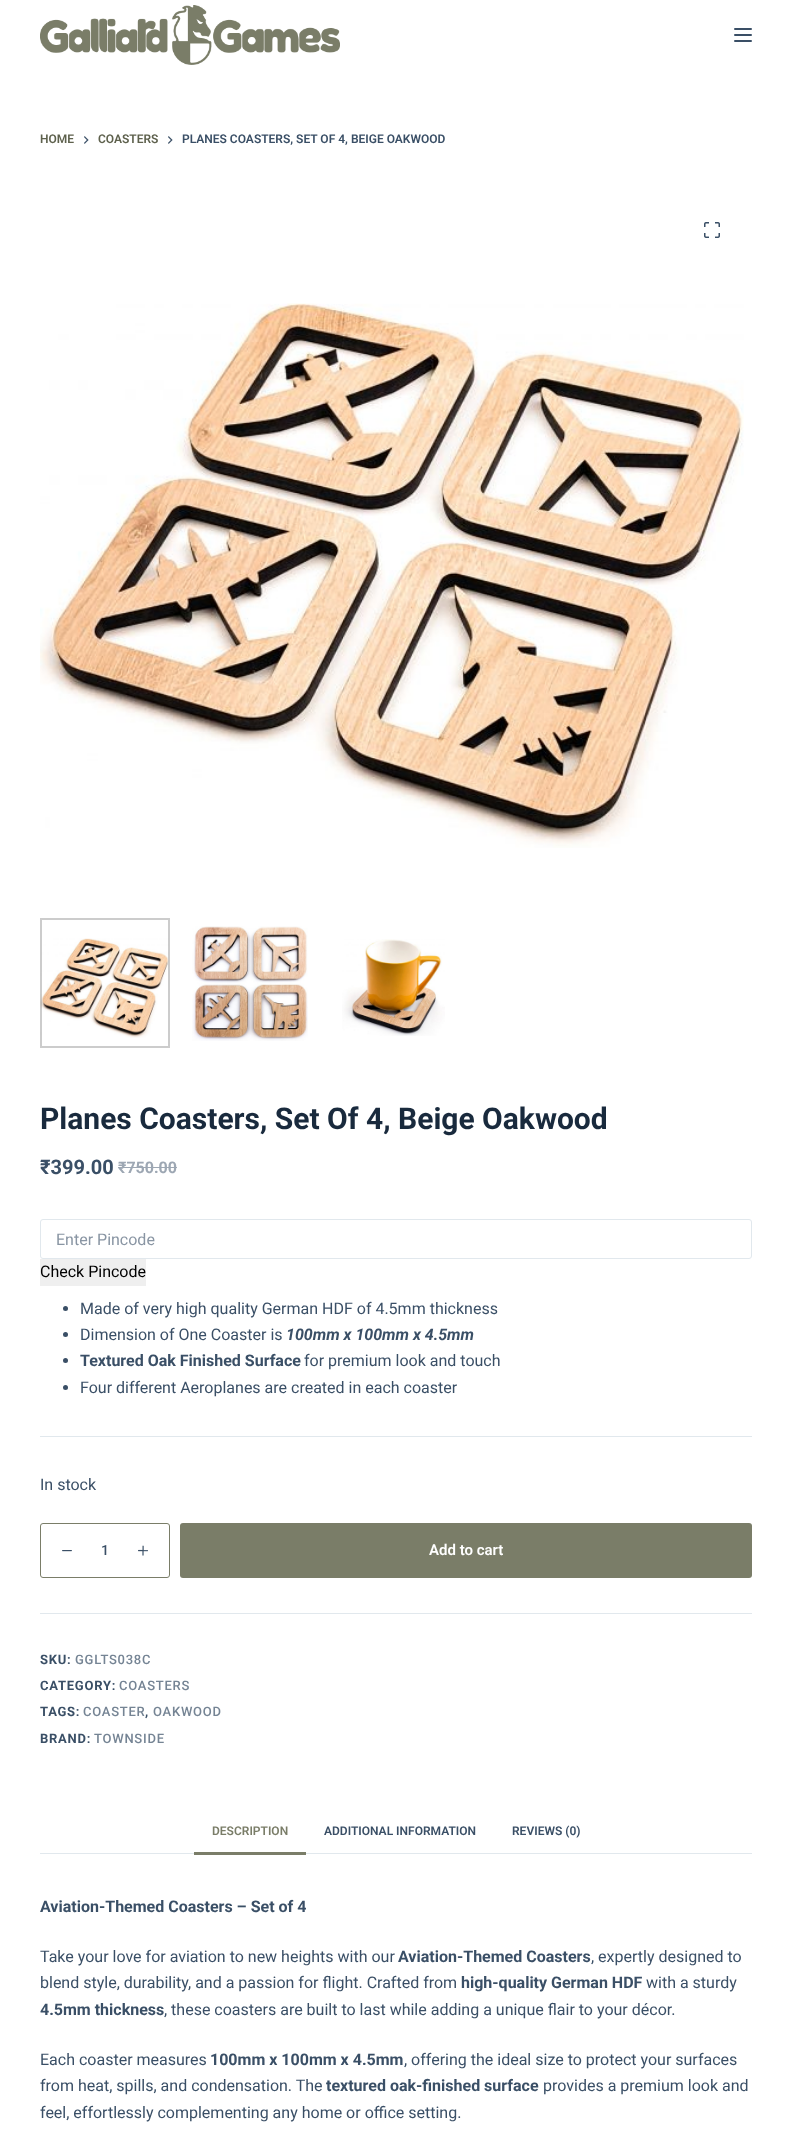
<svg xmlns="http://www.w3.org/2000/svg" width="792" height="2154">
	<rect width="100%" height="100%" fill="#FFFFFF" />
	<image x="40" y="5" width="300" height="60" href="assets/img1.png" />
	<rect x="734" y="28" width="18" height="2" rx="1" fill="#3A4F66" />
	<rect x="734" y="34" width="18" height="2" rx="1" fill="#3A4F66" />
	<rect x="734" y="40" width="18" height="2" rx="1" fill="#3A4F66" />
	<text x="40" y="143" font-family="Roboto" font-size="12" font-weight="600" fill="#5E614D">HOME</text>
	<image x="84" y="136" width="5" height="8" href="assets/img2.png" />
	<text x="98" y="143" font-family="Roboto" font-size="12" font-weight="600" fill="#5E614D">COASTERS</text>
	<image x="168" y="136" width="5" height="8" href="assets/img2.png" />
	<text x="182" y="143" font-family="Roboto" font-size="12" font-weight="600" fill="#3A4F66">PLANES COASTERS, SET OF 4, BEIGE OAKWOOD</text>
	<image x="704" y="222" width="16" height="16" href="assets/img3.png" />
	<image x="40" y="303" width="704" height="545" href="assets/img4.png" />
	<image x="40" y="938" width="129" height="100" href="assets/img5.png" />
	<rect x="41" y="919" width="128" height="128" fill="none" stroke="#000000" stroke-opacity="0.2" stroke-width="2" />
	<image x="192" y="926" width="116" height="115" href="assets/img6.png" />
	<image x="342" y="939" width="103" height="97" href="assets/img7.png" />
	<text x="40" y="1129" font-family="Roboto" font-size="30" font-weight="700" fill="#192A3D">Planes Coasters, Set Of 4, Beige Oakwood</text>
	<text x="40" y="1174" font-family="Roboto" font-size="20" font-weight="700" fill="#3A4F66">₹399.00</text>
	<text x="118" y="1173" font-family="Roboto" font-size="16" font-weight="700" fill="#9DA7B3">₹750.00</text>
	<rect x="118" y="1167" width="59" height="1" fill="#9DA7B3" />
	<rect x="40.5" y="1219.5" width="711" height="39" rx="2.5" fill="none" stroke="#E1E8ED" />
	<text x="56" y="1245" font-family="Roboto" font-size="16" fill="#8995A3">Enter Pincode</text>
	<rect x="40" y="1259" width="106" height="27" fill="#EFEFEF" />
	<text x="40" y="1277" font-family="Roboto" font-size="16" fill="#000000">Check Pincode</text>
	<circle cx="65.5" cy="1308.5" r="2.5" fill="#3A4F66" />
	<text x="80" y="1314" font-family="Roboto" font-size="16" fill="#3A4F66">Made of very high quality German HDF of 4.5mm thickness</text>
	<circle cx="65.5" cy="1334.5" r="2.5" fill="#3A4F66" />
	<text x="80" y="1340" font-family="Roboto" font-size="16" fill="#3A4F66">Dimension of One Coaster is</text>
	<text x="286" y="1340" font-family="Roboto" font-size="16" font-weight="700" font-style="italic" fill="#3A4F66">100mm x 100mm x 4.5mm</text>
	<circle cx="65.5" cy="1360.5" r="2.5" fill="#3A4F66" />
	<text x="80" y="1366" font-family="Roboto" font-size="16" font-weight="700" fill="#3A4F66">Textured Oak Finished Surface</text>
	<text x="304" y="1366" font-family="Roboto" font-size="16" fill="#3A4F66">for premium look and touch</text>
	<circle cx="65.5" cy="1387.5" r="2.5" fill="#3A4F66" />
	<text x="80" y="1393" font-family="Roboto" font-size="16" fill="#3A4F66">Four different Aeroplanes are created in each coaster</text>
	<rect x="40" y="1436" width="712" height="1" fill="#E1E8ED" />
	<text x="40" y="1490" font-family="Roboto" font-size="16" fill="#3A4F66">In stock</text>
	<rect x="40.5" y="1523.5" width="129" height="54" rx="2.5" fill="none" stroke="#7A7D68" />
	<image x="62" y="1550" width="10" height="2" href="assets/img8.png" />
	<text x="101" y="1555" font-family="Roboto" font-size="14" font-weight="500" fill="#3A4F66">1</text>
	<image x="138" y="1545" width="10" height="11" href="assets/img9.png" />
	<rect x="180" y="1523" width="572" height="55" rx="3" fill="#7A7D68" />
	<text x="429" y="1555" font-family="Roboto" font-size="15" font-weight="600" fill="#FFFFFF">Add to cart</text>
	<rect x="40" y="1613" width="712" height="1" fill="#E1E8ED" />
	<text x="40" y="1664" font-family="Roboto" font-size="13" font-weight="700" letter-spacing="0.75" fill="#3A4F66">SKU:</text>
	<text x="75" y="1664" font-family="Roboto" font-size="13" font-weight="500" letter-spacing="0.75" fill="#758494">GGLTS038C</text>
	<text x="40" y="1690" font-family="Roboto" font-size="13" font-weight="700" letter-spacing="0.75" fill="#3A4F66">CATEGORY:</text>
	<text x="119" y="1690" font-family="Roboto" font-size="13" font-weight="500" letter-spacing="0.75" fill="#758494">COASTERS</text>
	<text x="40" y="1716" font-family="Roboto" font-size="13" font-weight="700" letter-spacing="0.75" fill="#3A4F66">TAGS:</text>
	<text x="83" y="1716" font-family="Roboto" font-size="13" font-weight="500" letter-spacing="0.75" fill="#758494">COASTER</text>
	<text x="145" y="1716" font-family="Roboto" font-size="13" font-weight="700" letter-spacing="0.75" fill="#3A4F66">,</text>
	<text x="153" y="1716" font-family="Roboto" font-size="13" font-weight="500" letter-spacing="0.75" fill="#758494">OAKWOOD</text>
	<text x="40" y="1743" font-family="Roboto" font-size="13" font-weight="700" letter-spacing="0.75" fill="#3A4F66">BRAND:</text>
	<text x="94" y="1743" font-family="Roboto" font-size="13" font-weight="500" letter-spacing="0.75" fill="#758494">TOWNSIDE</text>
	<rect x="40" y="1853" width="712" height="1" fill="#E1E8ED" />
	<text x="212" y="1835" font-family="Roboto" font-size="12" font-weight="600" fill="#7A7D68">DESCRIPTION</text>
	<rect x="194" y="1852" width="112" height="3" fill="#7A7D68" />
	<g font-family="Roboto" font-size="12" font-weight="600" fill="#3A4F66">
		<text x="324" y="1835">ADDITIONAL INFORMATION</text>
		<text x="512" y="1835">REVIEWS (0)</text>
	</g>
	<text x="40" y="1912" font-family="Roboto" font-size="16" font-weight="700" fill="#3A4F66">Aviation-Themed Coasters – Set of 4</text>
	<text x="40" y="1962" font-family="Roboto" font-size="16" fill="#3A4F66">Take your love for aviation to new heights with our</text>
	<text x="398" y="1962" font-family="Roboto" font-size="16" font-weight="700" fill="#3A4F66">Aviation-Themed Coasters</text>
	<g font-family="Roboto" font-size="16" fill="#3A4F66">
		<text x="591" y="1962">, expertly designed to</text>
		<text x="40" y="1988">blend style, durability, and a passion for flight. Crafted from</text>
	</g>
	<text x="461" y="1988" font-family="Roboto" font-size="16" font-weight="700" fill="#3A4F66">high-quality German HDF</text>
	<text x="646" y="1988" font-family="Roboto" font-size="16" fill="#3A4F66">with a sturdy</text>
	<text x="40" y="2015" font-family="Roboto" font-size="16" font-weight="700" fill="#3A4F66">4.5mm thickness</text>
	<g font-family="Roboto" font-size="16" fill="#3A4F66">
		<text x="164" y="2015">, these coasters are built to last while adding a unique flair to your décor.</text>
		<text x="40" y="2065">Each coaster measures</text>
	</g>
	<text x="210" y="2065" font-family="Roboto" font-size="16" font-weight="700" fill="#3A4F66">100mm x 100mm x 4.5mm</text>
	<g font-family="Roboto" font-size="16" fill="#3A4F66">
		<text x="404" y="2065">, offering the ideal size to protect your surfaces</text>
		<text x="40" y="2091">from heat, spills, and condensation. The</text>
	</g>
	<text x="326" y="2091" font-family="Roboto" font-size="16" font-weight="700" fill="#3A4F66">textured oak-finished surface</text>
	<g font-family="Roboto" font-size="16" fill="#3A4F66">
		<text x="543" y="2091">provides a premium look and</text>
		<text x="40" y="2118">feel, effortlessly complementing any home or office setting.</text>
	</g>
</svg>
